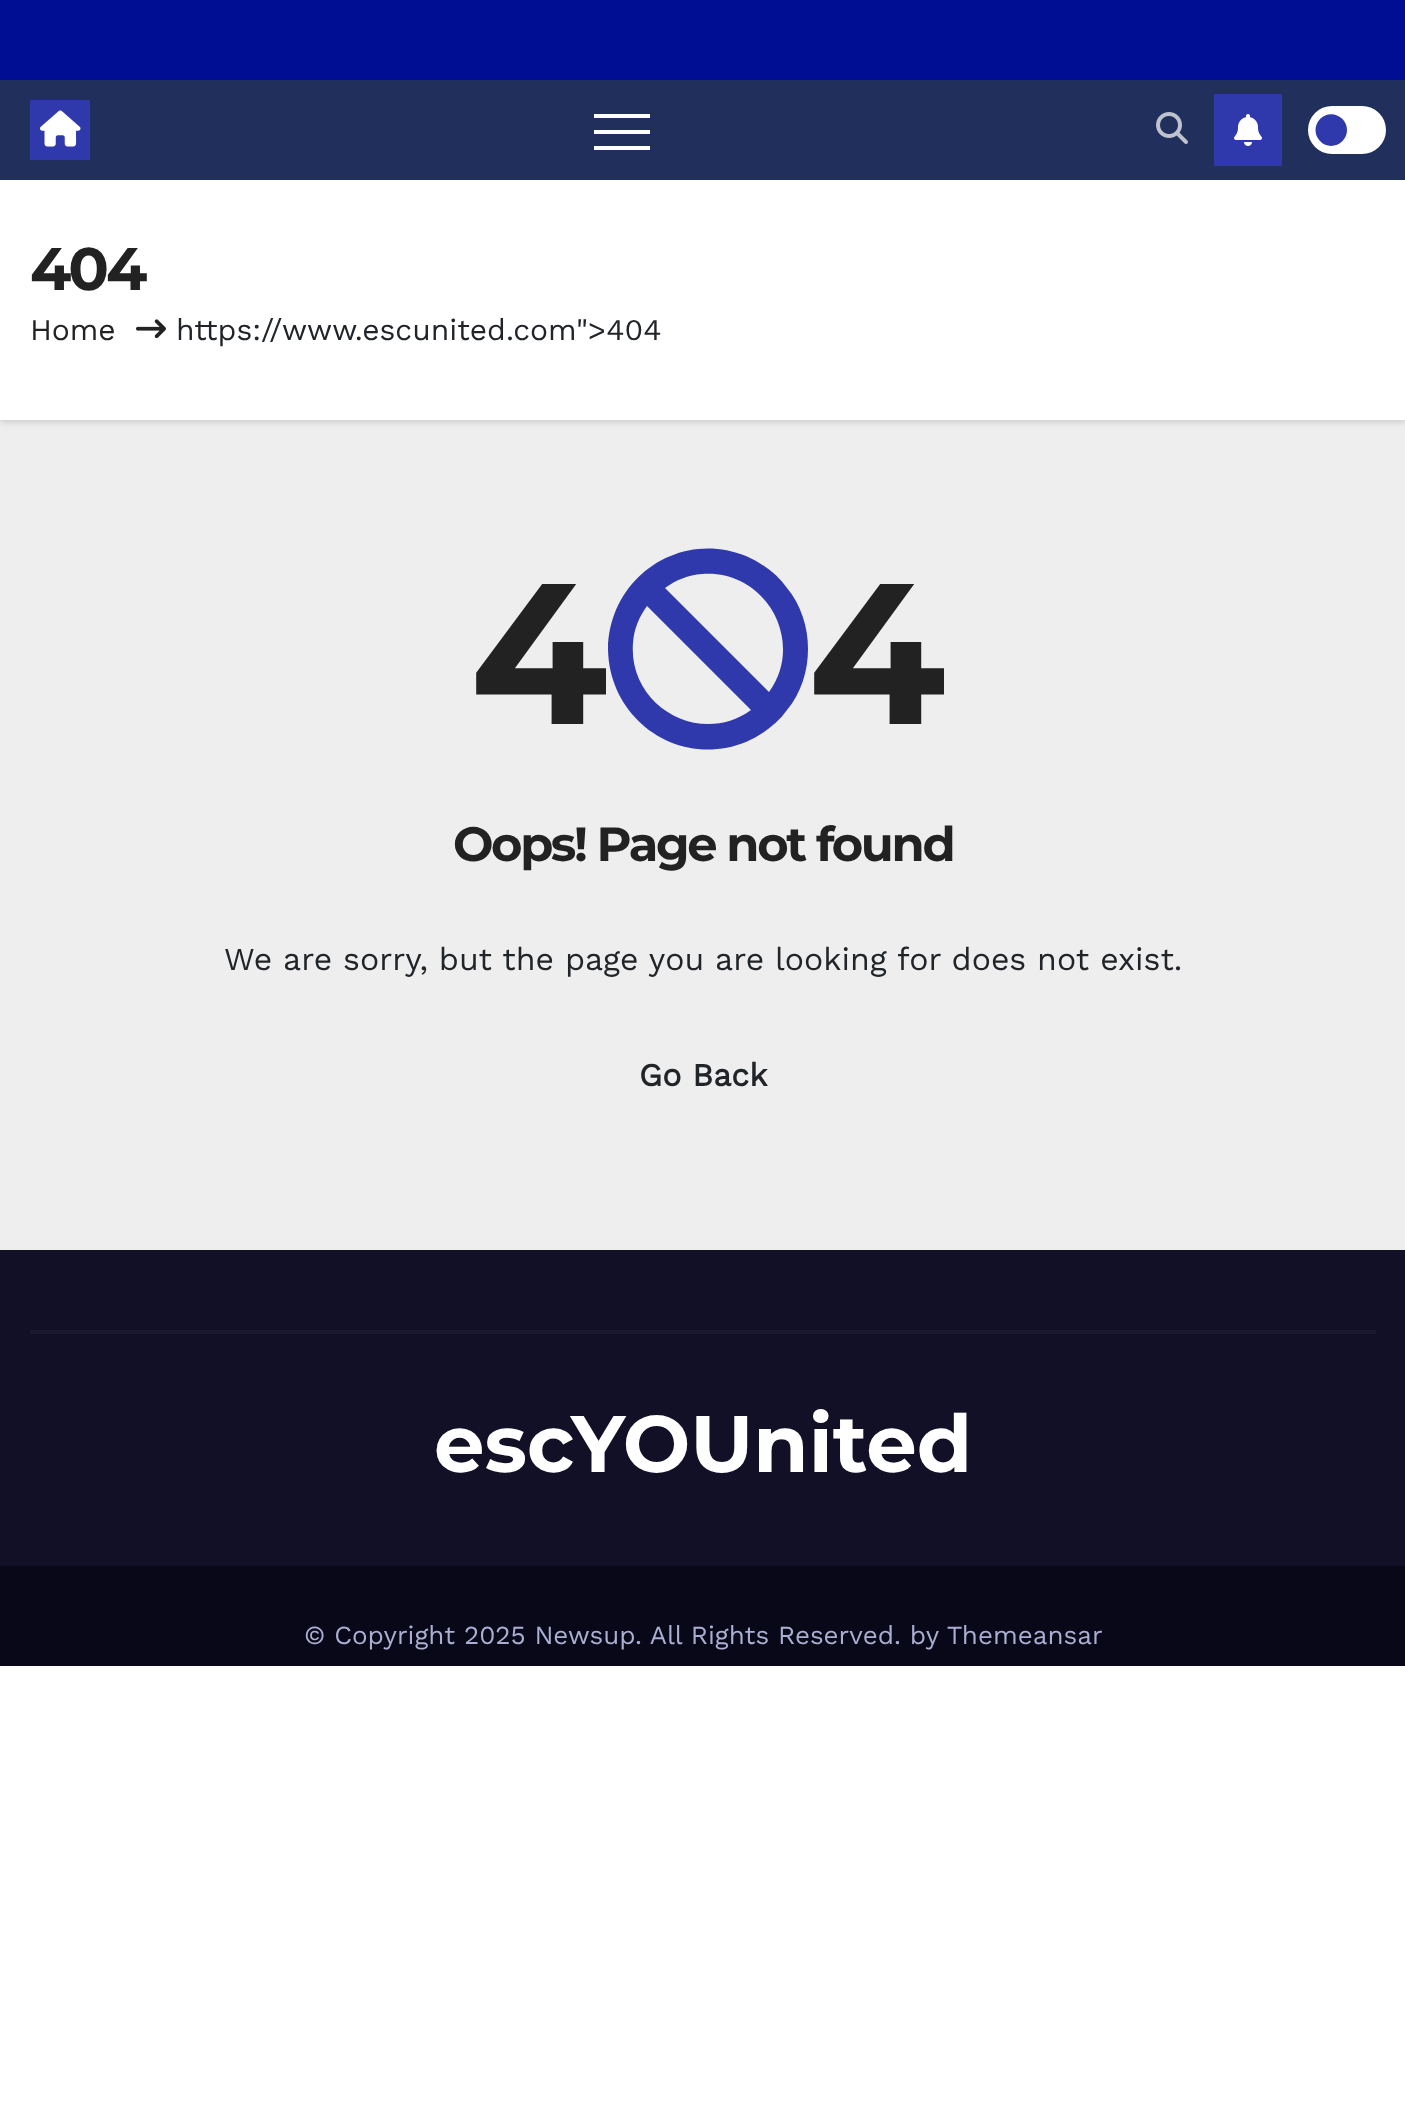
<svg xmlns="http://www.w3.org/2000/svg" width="1405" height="2117">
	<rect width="100%" height="100%" fill="#FFFFFF" />
	<rect x="0" y="420" width="1405" height="830" fill="#EEEEEE" />
	<rect x="0" y="0" width="1405" height="80" fill="#000E93" />
	<rect x="0" y="182" width="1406" height="240" fill="#000000" fill-opacity="0.15" filter="blur(3px)" />
	<rect x="0" y="80" width="1405" height="100" fill="#202F5B" />
	<rect x="30" y="100" width="60" height="60" fill="#3039AC" />
	<image x="40" y="110" width="41" height="37" href="assets/img1.png" />
	<rect x="594" y="114" width="56" height="4" fill="#FFFFFF" />
	<rect x="594" y="130" width="56" height="4" fill="#FFFFFF" />
	<rect x="594" y="146" width="56" height="4" fill="#FFFFFF" />
	<image x="1156" y="112" width="32" height="32" href="assets/img2.png" />
	<rect x="1214" y="94" width="68" height="72" fill="#3039AC" />
	<image x="1234" y="114" width="28" height="32" href="assets/img3.png" />
	<rect x="1308" y="106" width="78" height="48" rx="24" fill="#FFFFFF" />
	<path d="M1320 119C1326 112.5 1336 112.5 1342.5 119C1348.5 125 1348.5 135 1342.5 141C1336 147.5 1326 147.5 1320 141C1314 135 1314 125 1320 119Z" fill="#3039AC" />
	<rect x="0" y="180" width="1405" height="240" fill="#FFFFFF" />
	<text x="30" y="290" font-family="Montserrat" font-size="60" font-weight="700" letter-spacing="-3" fill="#222222">404</text>
	<text x="30" y="340" font-family="Work Sans" font-size="30" fill="#222222">Home</text>
	<image x="136" y="319" width="30" height="20" href="assets/img4.png" />
	<text x="176" y="340" font-family="Work Sans" font-size="30" fill="#212529">https://www.escunited.com"&gt;404</text>
	<text x="470" y="724" font-family="Montserrat" font-size="200" font-weight="700" letter-spacing="-10" fill="#222222">4</text>
	<path d="M751 710L647 606C639 617 634 629 633 643C628 706 700 747 751 710ZM769 692C806 641 765 569 702 574C688 575 676 580 665 588ZM608 649C609 578 679 529 746 556C762 563 777 574 787 588C801 605 808 627 808 649C808 671 801 693 787 710C777 724 762 735 746 742C679 769 609 720 608 649Z" fill="#3039AC" />
	<text x="808" y="724" font-family="Montserrat" font-size="200" font-weight="700" letter-spacing="-10" fill="#222222">4</text>
	<text x="453" y="861" font-family="Montserrat" font-size="48" font-weight="700" letter-spacing="-2.4" fill="#222222">Oops! Page not found</text>
	<text x="224" y="970" font-family="Work Sans" font-size="32" fill="#212529">We are sorry, but the page you are looking for does not exist.</text>
	<text x="639" y="1086" font-family="Work Sans" font-size="32" font-weight="700" fill="#212529">Go Back</text>
	<rect x="0" y="1250" width="1405" height="316" fill="#121026" />
	<rect x="30" y="1330" width="1346" height="4" fill="#1A182E" />
	<text x="434" y="1472" font-family="Montserrat" font-size="80" font-weight="700" fill="#FFFFFF">escYOUnited</text>
	<rect x="0" y="1566" width="1405" height="100" fill="#090818" />
	<text x="304" y="1644" font-family="Work Sans" font-size="26" fill="#AAAED1">© Copyright 2025 Newsup. All Rights Reserved. by Themeansar</text>
</svg>
